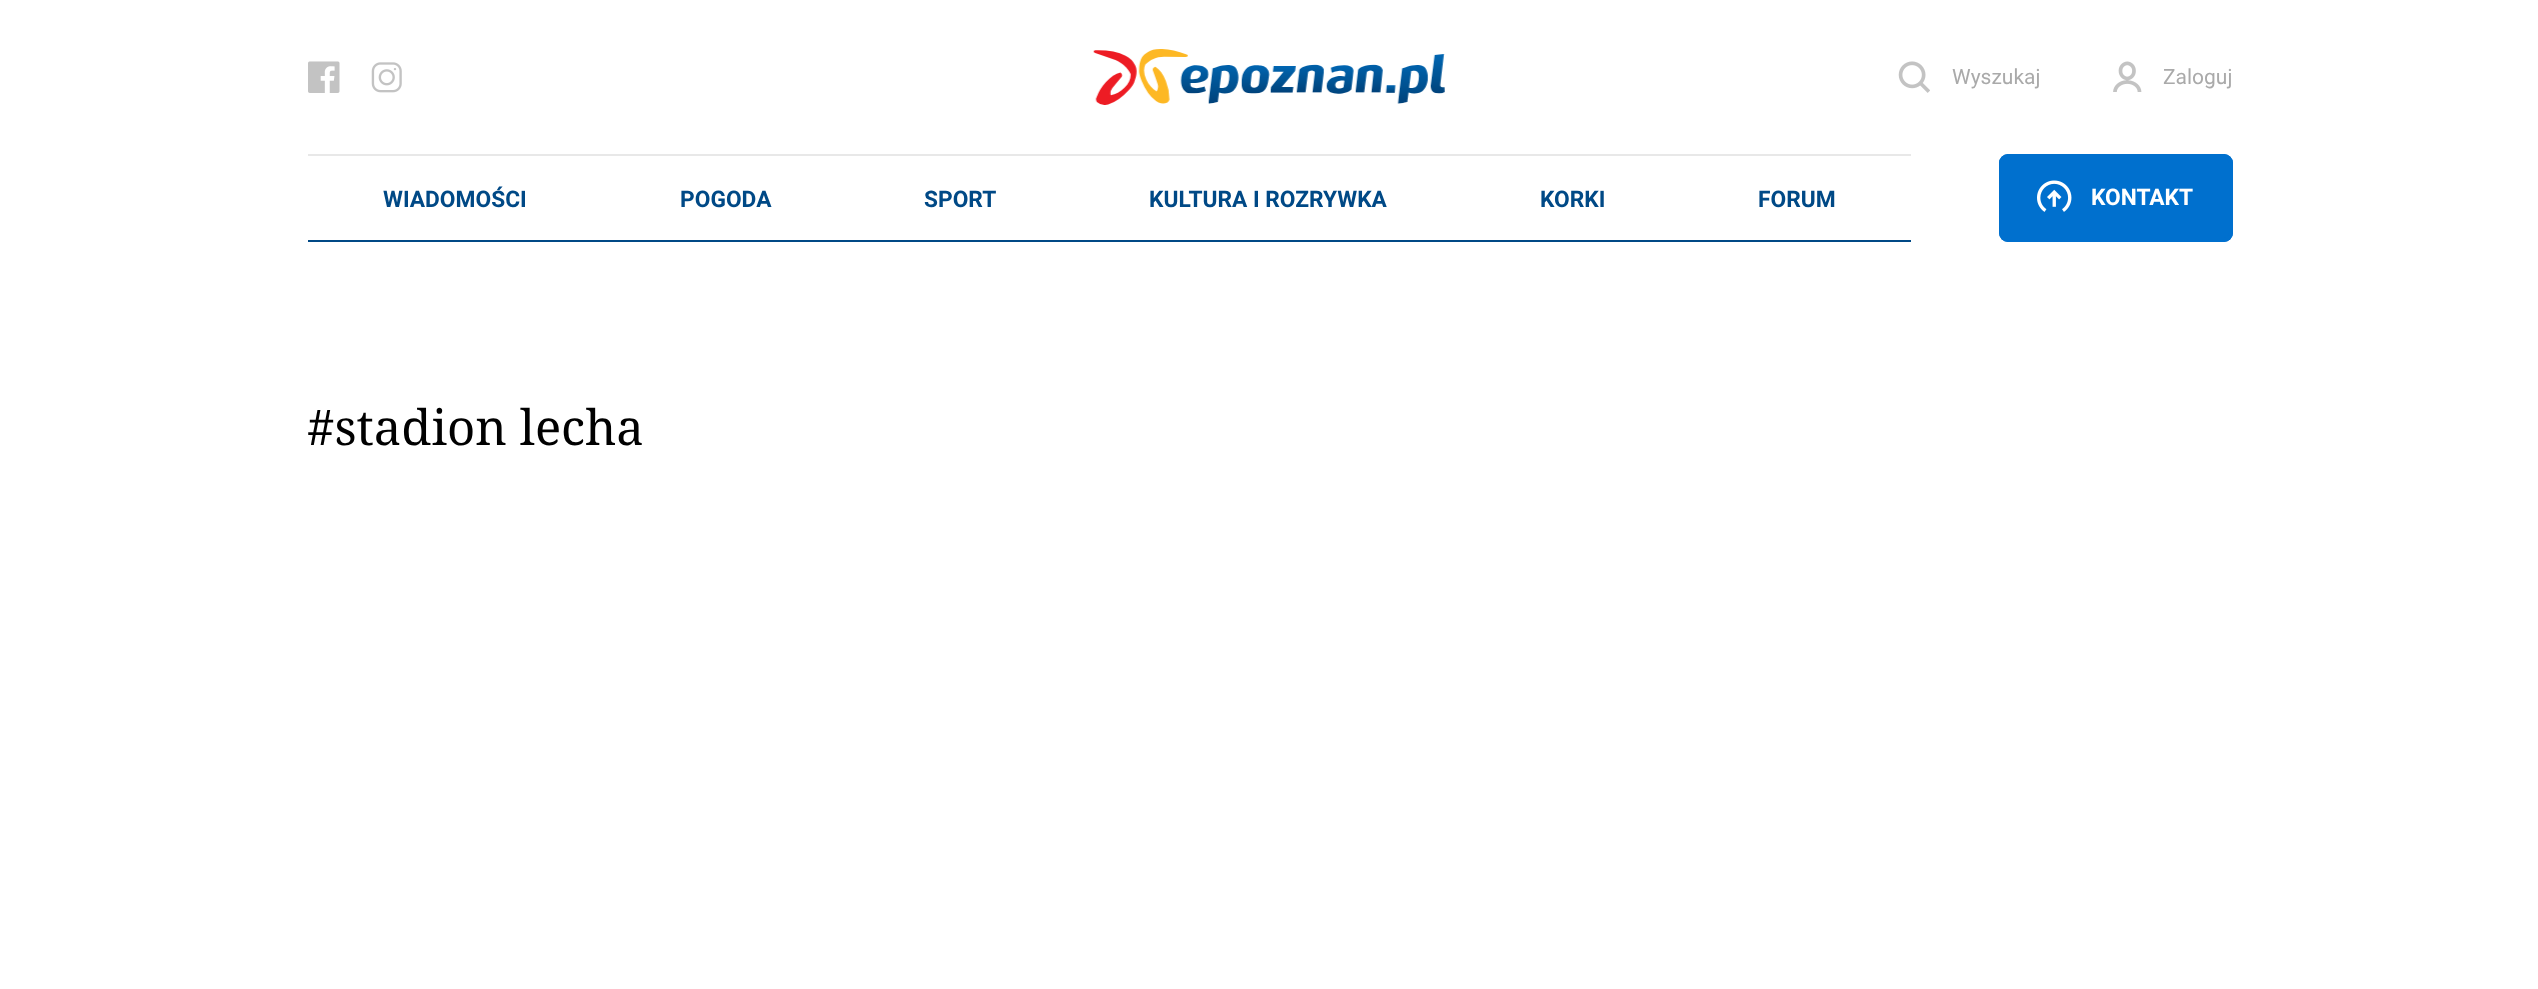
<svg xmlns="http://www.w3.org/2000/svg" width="2538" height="989">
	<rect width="100%" height="100%" fill="#FFFFFF" />
	<image x="308" y="61" width="32" height="32" href="assets/img1.png" />
	<image x="371" y="62" width="31" height="31" href="assets/img2.png" />
	<image x="1093" y="49" width="352" height="56" href="assets/img3.png" />
	<image x="1898" y="61" width="32" height="32" href="assets/img4.png" />
	<text x="1952" y="84" font-family="Roboto" font-size="21" fill="#AAAAAA">Wyszukaj</text>
	<image x="2113" y="61" width="29" height="31" href="assets/img5.png" />
	<text x="2163" y="84" font-family="Roboto" font-size="21" fill="#AAAAAA">Zaloguj</text>
	<rect x="308" y="154" width="1603" height="2" fill="#E8E8E8" />
	<rect x="308" y="240" width="1603" height="2" fill="#004986" />
	<g font-family="Roboto" font-size="22.75" font-weight="700" fill="#004986">
		<text x="383" y="207">WIADOMOŚCI</text>
		<text x="680" y="207">POGODA</text>
		<text x="924" y="207">SPORT</text>
		<text x="1149" y="207">KULTURA I ROZRYWKA</text>
		<text x="1540" y="207">KORKI</text>
		<text x="1758" y="207">FORUM</text>
	</g>
	<rect x="1999" y="154" width="234" height="88" rx="9" fill="#0070CE" />
	<image x="2037" y="180" width="35" height="32" href="assets/img6.png" />
	<rect x="2001" y="156" width="230" height="84" rx="7" fill="none" stroke="#0070CE" stroke-width="4" />
	<text x="2091" y="205" font-family="Roboto" font-size="22.75" font-weight="700" fill="#FFFFFF">KONTAKT</text>
	<text x="307" y="445" font-family="Noto Serif" font-size="49" fill="#000000">#stadion lecha</text>
</svg>
